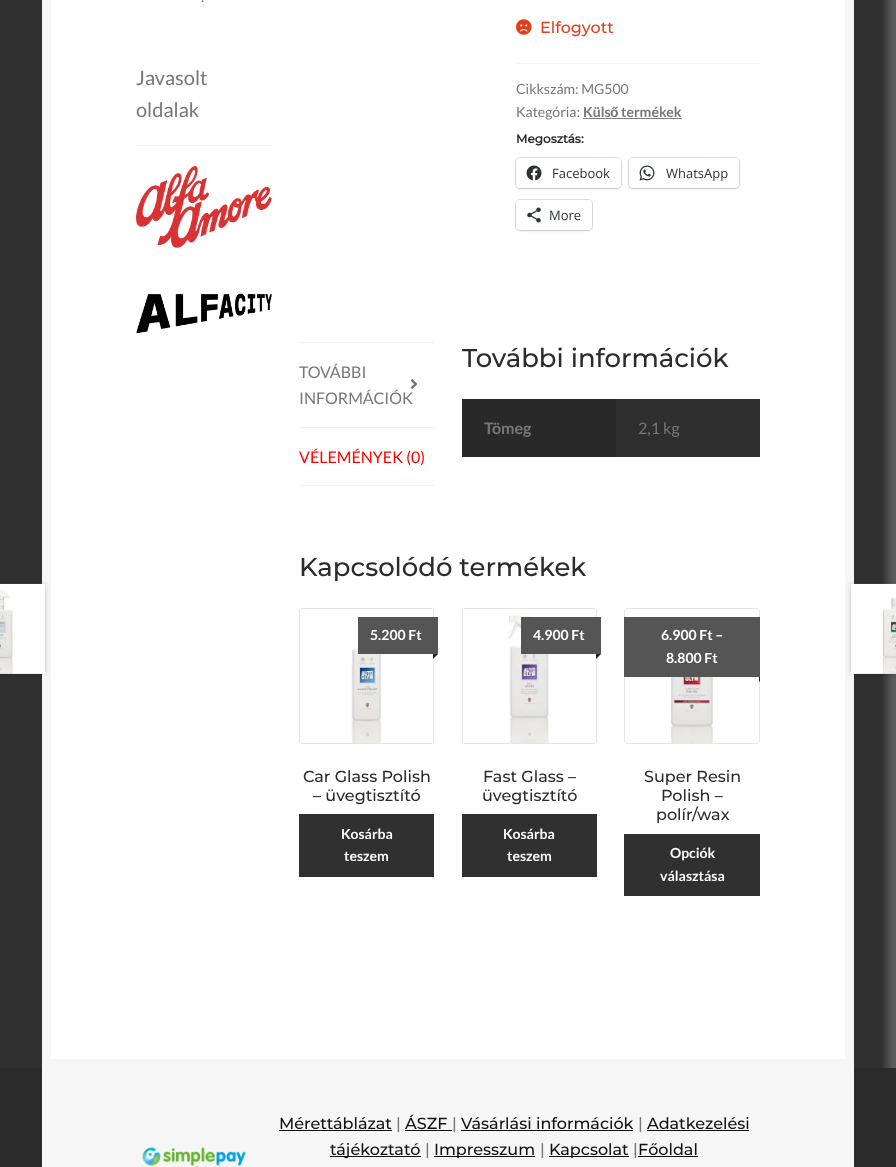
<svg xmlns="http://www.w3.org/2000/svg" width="896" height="1167">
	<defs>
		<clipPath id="clip1"><rect x="299" y="0" width="461" height="959" /></clipPath>
	</defs>
	<rect width="100%" height="100%" fill="#FFFFFF" />
	<image x="0" y="0" width="896" height="1068" href="assets/img1.png" />
	<rect x="46.5" y="-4.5" width="803" height="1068" fill="#FFFFFF" stroke="#F6F6F6" stroke-width="9" />
	<text x="201" y="2" font-family="Montserrat" font-size="14" font-weight="100" fill="#777777">.</text>
	<rect x="136" y="145" width="136" height="1" fill="#F2F2F2" />
	<g font-family="Lato" font-size="20" fill="#777777">
		<text x="136" y="85">Javasolt</text>
		<text x="136" y="117">oldalak</text>
	</g>
	<image x="136" y="166" width="136" height="82" href="assets/img2.png" />
	<image x="136" y="293" width="136" height="41" href="assets/img3.png" />
	<image x="516" y="19" width="16" height="16" href="assets/img4.png" />
	<text x="540" y="33" font-family="Montserrat" font-size="16" font-weight="100" fill="#E2401C">Elfogyott</text>
	<rect x="516" y="63" width="244" height="1" fill="#F2F2F2" />
	<g font-family="Lato" font-size="14" fill="#777777">
		<text x="516" y="94">Cikkszám: MG500</text>
		<text x="516" y="117">Kategória:</text>
	</g>
	<text x="583" y="117" font-family="Lato" font-size="14" font-weight="700" fill="#777777">Küls</text>
	<rect x="583" y="118" width="99" height="1" fill="#7C7C7C" />
	<text x="610" y="117" font-family="Liberation Sans" font-size="14" font-weight="700" fill="#777777">ő</text>
	<text x="621" y="117" font-family="Lato" font-size="14" font-weight="700" fill="#777777">termékek</text>
	<text x="516" y="143" font-family="Montserrat" font-size="12" font-weight="700" fill="#2B2B2B">Megosztás:</text>
	<rect x="515.5" y="157.5" width="106" height="31" rx="4.5" fill="none" stroke="#E0E0E0" />
	<rect x="516" y="159" width="105" height="30" rx="4" fill="#000000" fill-opacity="0.12" filter="blur(1px)" />
	<rect x="516" y="158" width="105" height="30" rx="4" fill="#FFFFFF" />
	<image x="526" y="165" width="16" height="16" href="assets/img5.png" />
	<text x="552" y="178" font-family="Open Sans" font-size="13" fill="#2C3338">Facebook</text>
	<rect x="628.5" y="157.5" width="111" height="31" rx="4.5" fill="none" stroke="#E0E0E0" />
	<rect x="629" y="159" width="110" height="30" rx="4" fill="#000000" fill-opacity="0.12" filter="blur(1px)" />
	<rect x="629" y="158" width="110" height="30" rx="4" fill="#FFFFFF" />
	<image x="639" y="165" width="16" height="16" href="assets/img6.png" />
	<text x="666" y="178" font-family="Open Sans" font-size="13" fill="#2C3338">WhatsApp</text>
	<rect x="515.5" y="199.5" width="77" height="31" rx="4.5" fill="none" stroke="#E0E0E0" />
	<rect x="516" y="201" width="76" height="30" rx="4" fill="#000000" fill-opacity="0.12" filter="blur(1px)" />
	<rect x="516" y="200" width="76" height="30" rx="4" fill="#FFFFFF" />
	<image x="527" y="207" width="14" height="16" href="assets/img7.png" />
	<text x="549" y="220" font-family="Open Sans" font-size="13" fill="#2C3338">More</text>
	<rect x="299" y="342" width="135" height="1" fill="#F2F2F2" />
	<rect x="299" y="427" width="135" height="1" fill="#F2F2F2" />
	<g font-family="Lato" font-size="16" fill="#777777">
		<text x="299" y="378">TOVÁBBI</text>
		<text x="299" y="404">INFORMÁCIÓK</text>
	</g>
	<image x="410" y="379" width="8" height="10" href="assets/img8.png" />
	<rect x="299" y="485" width="135" height="1" fill="#F2F2F2" />
	<text x="299" y="463" font-family="Lato" font-size="16" fill="#FF0000">VÉLEMÉNYEK (0)</text>
	<text x="462" y="367" font-family="Montserrat" font-size="25.9" font-weight="100" fill="#2B2B2B">További információk</text>
	<rect x="462" y="399" width="154" height="58" fill="#292929" />
	<text x="484" y="434" font-family="Lato" font-size="16" font-weight="700" fill="#777777">Tömeg</text>
	<rect x="616" y="399" width="144" height="58" fill="#2E2E2E" />
	<text x="638" y="434" font-family="Lato" font-size="16" fill="#777777">2,1 kg</text>
	<text x="299" y="576" font-family="Montserrat" font-size="25.9" font-weight="100" fill="#2B2B2B">Kapcsolódó termékek</text>
	<rect x="299.5" y="608.5" width="134" height="135" rx="2.5" fill="none" stroke="#E6E6E6" />
	<image x="300" y="609" width="133" height="134" href="assets/img9.png" />
	<rect x="358" y="617" width="80" height="37" fill="#555555" />
	<text x="370" y="640" font-family="Lato" font-size="14" font-weight="700" fill="#FFFFFF">5.200 Ft</text>
	<path d="M433 654H438L433 659Z" fill="#222222" />
	<g font-family="Montserrat" font-size="16" font-weight="100" fill="#2B2B2B">
		<text x="303" y="782">Car Glass Polish</text>
		<text x="313" y="801">– üvegtisztító</text>
	</g>
	<rect x="299" y="814" width="135" height="63" fill="#303030" />
	<g font-family="Lato" font-size="14" font-weight="700" fill="#F9F9F9">
		<text x="341" y="839">Kosárba</text>
		<text x="344" y="861">teszem</text>
	</g>
	<rect x="462.5" y="608.5" width="134" height="135" rx="2.5" fill="none" stroke="#E6E6E6" />
	<image x="463" y="609" width="133" height="134" href="assets/img10.png" />
	<rect x="521" y="617" width="80" height="37" fill="#555555" />
	<text x="533" y="640" font-family="Lato" font-size="14" font-weight="700" fill="#FFFFFF">4.900 Ft</text>
	<path d="M596 654H601L596 659Z" fill="#222222" />
	<g font-family="Montserrat" font-size="16" font-weight="100" fill="#2B2B2B">
		<text x="483" y="782">Fast Glass –</text>
		<text x="482" y="801">üvegtisztító</text>
	</g>
	<rect x="462" y="814" width="135" height="63" fill="#303030" />
	<g font-family="Lato" font-size="14" font-weight="700" fill="#F9F9F9">
		<text x="503" y="839">Kosárba</text>
		<text x="507" y="861">teszem</text>
	</g>
	<rect x="624.5" y="608.5" width="135" height="135" rx="2.5" fill="none" stroke="#E6E6E6" />
	<image x="625" y="609" width="134" height="134" href="assets/img11.png" />
	<rect x="624" y="617" width="136" height="60" fill="#555555" />
	<g font-family="Lato" font-size="14" font-weight="700" fill="#FFFFFF">
		<text x="661" y="640">6.900 Ft –</text>
		<text x="666" y="663">8.800 Ft</text>
	</g>
	<g clip-path="url(#clip1)">
		<path d="M759 677H764L759 682Z" fill="#222222" />
	</g>
	<g font-family="Montserrat" font-size="16" font-weight="100" fill="#2B2B2B">
		<text x="644" y="782">Super Resin</text>
		<text x="661" y="801">Polish –</text>
		<text x="656" y="820">polír/wax</text>
	</g>
	<rect x="624" y="834" width="136" height="62" fill="#303030" />
	<g font-family="Lato" font-size="14" font-weight="700" fill="#F9F9F9">
		<text x="670" y="858">Opciók</text>
		<text x="660" y="881">választása</text>
	</g>
	<rect x="-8" y="584" width="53" height="90" fill="#000000" fill-opacity="0.2" filter="blur(2.5px)" />
	<image x="0" y="583" width="45" height="91" href="assets/img12.png" />
	<rect x="851" y="584" width="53" height="90" fill="#000000" fill-opacity="0.2" filter="blur(2.5px)" />
	<image x="851" y="583" width="45" height="91" href="assets/img13.png" />
	<rect x="0" y="1068" width="896" height="99" fill="#2B2B2B" />
	<rect x="42" y="1068" width="812" height="99" fill="#F6F6F6" />
	<image x="142" y="1147" width="104" height="20" href="assets/img14.png" />
	<text x="279" y="1129" font-family="Montserrat" font-size="16" font-weight="100" fill="#111111">Mérettáblázat</text>
	<rect x="279" y="1130" width="113" height="1" fill="#111111" />
	<text x="396" y="1129" font-family="Montserrat" font-size="16" font-weight="100" fill="#777777">|</text>
	<text x="405" y="1129" font-family="Montserrat" font-size="16" font-weight="100" fill="#111111">ÁSZF</text>
	<rect x="405" y="1130" width="47" height="1" fill="#111111" />
	<text x="452" y="1129" font-family="Montserrat" font-size="16" font-weight="100" fill="#777777">|</text>
	<text x="461" y="1129" font-family="Montserrat" font-size="16" font-weight="100" fill="#111111">Vásárlási információk</text>
	<rect x="461" y="1130" width="172" height="1" fill="#111111" />
	<text x="638" y="1129" font-family="Montserrat" font-size="16" font-weight="100" fill="#777777">|</text>
	<text x="647" y="1129" font-family="Montserrat" font-size="16" font-weight="100" fill="#111111">Adatkezelési</text>
	<rect x="647" y="1130" width="102" height="1" fill="#111111" />
	<rect x="330" y="1156" width="91" height="1" fill="#111111" />
	<text x="330" y="1155" font-family="Montserrat" font-size="16" font-weight="100" fill="#111111">tájékoztató</text>
	<text x="425" y="1155" font-family="Montserrat" font-size="16" font-weight="100" fill="#777777">|</text>
	<rect x="434" y="1156" width="101" height="1" fill="#111111" />
	<text x="434" y="1155" font-family="Montserrat" font-size="16" font-weight="100" fill="#111111">Impresszum</text>
	<text x="540" y="1155" font-family="Montserrat" font-size="16" font-weight="100" fill="#777777">|</text>
	<rect x="549" y="1156" width="80" height="1" fill="#111111" />
	<text x="549" y="1155" font-family="Montserrat" font-size="16" font-weight="100" fill="#111111">Kapcsolat</text>
	<text x="633" y="1155" font-family="Montserrat" font-size="16" font-weight="100" fill="#777777">|</text>
	<text x="638" y="1155" font-family="Montserrat" font-size="16" font-weight="100" fill="#111111">Főoldal</text>
	<rect x="638" y="1156" width="60" height="1" fill="#111111" />
</svg>
